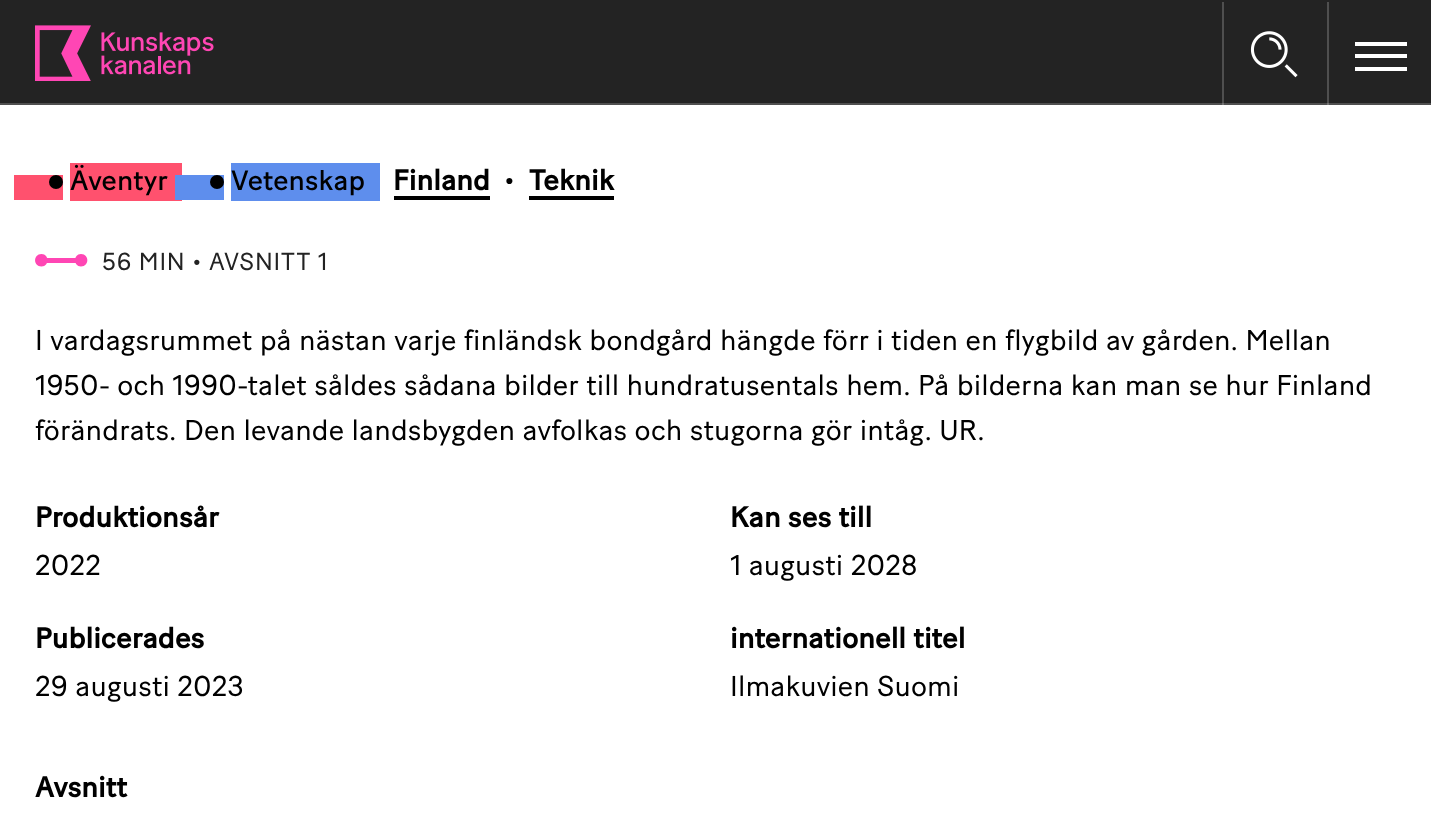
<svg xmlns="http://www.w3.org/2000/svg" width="1431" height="831">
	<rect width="100%" height="100%" fill="#FFFFFF" />
	<rect x="0" y="0" width="1431" height="103" fill="#232323" />
	<rect x="1327" y="2" width="2" height="103" fill="#4F4F4F" />
	<rect x="1222" y="2" width="2" height="103" fill="#4F4F4F" />
	<rect x="0" y="103" width="1431" height="2" fill="#4F4F4F" />
	<rect x="1327" y="103" width="2" height="2" fill="#727272" />
	<rect x="1222" y="103" width="2" height="2" fill="#727272" />
	<image x="35" y="25" width="179" height="56" href="assets/img1.png" />
	<image x="1250" y="31" width="48" height="47" href="assets/img2.png" />
	<rect x="1355" y="42" width="52" height="4" fill="#FFFFFF" />
	<rect x="1355" y="54" width="52" height="4" fill="#FFFFFF" />
	<rect x="1355" y="67" width="52" height="4" fill="#FFFFFF" />
	<rect x="14" y="175" width="49" height="25" fill="#FF516E" />
	<rect x="70" y="163" width="112" height="38" fill="#FF516E" />
	<circle cx="56" cy="182" r="7" fill="#000000" />
	<text x="70" y="190" font-family="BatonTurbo" font-size="28" font-weight="500" letter-spacing="0.14" fill="#000000">Äventyr</text>
	<rect x="175" y="175" width="49" height="25" fill="#5E8EED" />
	<rect x="231" y="163" width="149" height="38" fill="#5E8EED" />
	<circle cx="217" cy="182" r="7" fill="#000000" />
	<text x="231" y="190" font-family="BatonTurbo" font-size="28" font-weight="500" letter-spacing="0.14" fill="#000000">Vetenskap</text>
	<text x="393" y="190" font-family="BatonTurbo" font-size="28.65" font-weight="700" letter-spacing="0.14" fill="#000000">Finland</text>
	<rect x="394" y="196" width="96" height="4" fill="#000000" />
	<text x="504" y="190" font-family="BatonTurbo" font-size="28.65" letter-spacing="0.14" fill="#000000">•</text>
	<text x="529" y="190" font-family="BatonTurbo" font-size="28.65" font-weight="700" letter-spacing="0.14" fill="#000000">Teknik</text>
	<rect x="529" y="196" width="85" height="4" fill="#000000" />
	<rect x="46" y="258" width="36" height="5" fill="#FF46B4" />
	<path d="M41.5 266.5C49.5 266.5 49.5 254 41.5 254C33 254 33 266.5 41.5 266.5ZM81 266.5C89.5 266.5 89.5 254 81 254C73 254 73 266.5 81 266.5Z" fill="#FF46B4" />
	<text x="102" y="270" font-family="BatonTurbo" font-size="24.5" letter-spacing="0.75" fill="#232323">56 MIN • AVSNITT 1</text>
	<g font-family="BatonTurbo" font-size="28.65" letter-spacing="0.14" fill="#000000">
		<text x="35" y="350">I vardagsrummet på nästan varje finländsk bondgård hängde förr i tiden en flygbild av gården. Mellan</text>
		<text x="35" y="395">1950- och 1990-talet såldes sådana bilder till hundratusentals hem. På bilderna kan man se hur Finland</text>
		<text x="35" y="440">förändrats. Den levande landsbygden avfolkas och stugorna gör intåg. UR.</text>
	</g>
	<text x="35" y="527" font-family="BatonTurbo" font-size="28.65" font-weight="700" letter-spacing="0.14" fill="#000000">Produktionsår</text>
	<text x="35" y="575" font-family="BatonTurbo" font-size="28.65" letter-spacing="0.14" fill="#000000">2022</text>
	<text x="730" y="527" font-family="BatonTurbo" font-size="28.65" font-weight="700" letter-spacing="0.14" fill="#000000">Kan ses till</text>
	<text x="730" y="575" font-family="BatonTurbo" font-size="28.65" letter-spacing="0.14" fill="#000000">1 augusti 2028</text>
	<text x="35" y="648" font-family="BatonTurbo" font-size="28.65" font-weight="700" letter-spacing="0.14" fill="#000000">Publicerades</text>
	<text x="35" y="696" font-family="BatonTurbo" font-size="28.65" letter-spacing="0.14" fill="#000000">29 augusti 2023</text>
	<text x="730" y="648" font-family="BatonTurbo" font-size="28.65" font-weight="700" letter-spacing="0.14" fill="#000000">internationell titel</text>
	<text x="730" y="696" font-family="BatonTurbo" font-size="28.65" letter-spacing="0.14" fill="#000000">Ilmakuvien Suomi</text>
	<text x="35" y="797" font-family="BatonTurbo" font-size="28.65" font-weight="700" letter-spacing="0.14" fill="#000000">Avsnitt</text>
</svg>
